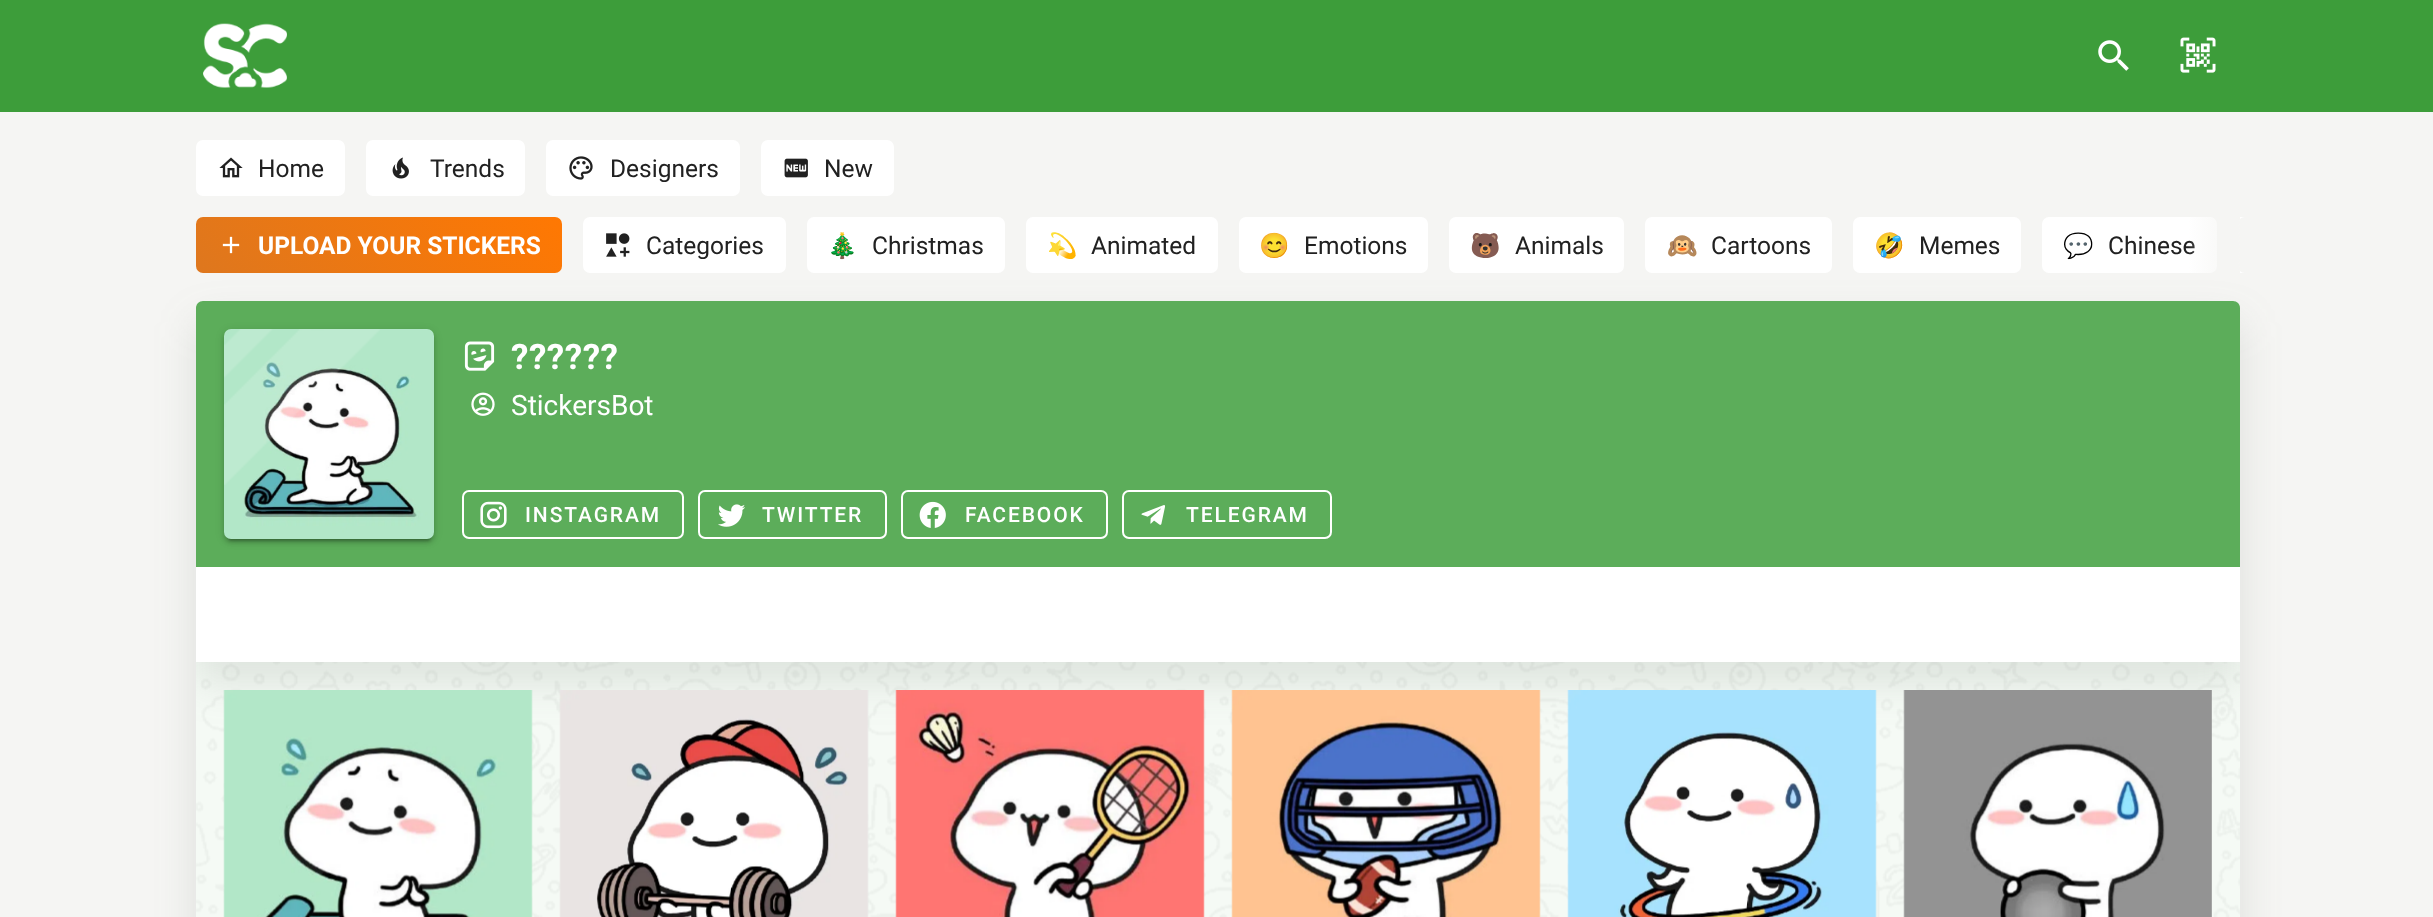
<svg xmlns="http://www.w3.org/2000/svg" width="2433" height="917">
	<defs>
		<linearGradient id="g1" gradientUnits="userSpaceOnUse" x1="273" y1="350" x2="484" y2="140"><stop offset="0" stop-color="#DE771E" /><stop offset="1" stop-color="#FF7802" /></linearGradient>
		<linearGradient id="g2" gradientUnits="userSpaceOnUse" x1="2188" y1="245" x2="2240" y2="245"><stop offset="0" stop-color="#F5F5F3" stop-opacity="0" /><stop offset="1" stop-color="#F5F5F3" /></linearGradient>
		<clipPath id="clip1"><rect x="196" y="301" width="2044" height="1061" rx="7" /></clipPath>
		<clipPath id="clip2"><path d="M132 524H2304V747H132ZM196 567H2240V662H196Z" clip-rule="evenodd" /></clipPath>
	</defs>
	<rect width="100%" height="100%" fill="#F5F5F3" />
	<rect x="0" y="0" width="2433" height="112" fill="#3D9D3A" />
	<image x="203" y="23" width="84" height="65" href="assets/img1.png" />
	<image x="2098" y="40" width="31" height="31" href="assets/img2.png" />
	<image x="2180" y="37" width="36" height="36" href="assets/img3.png" />
	<rect x="196" y="140" width="149" height="56" rx="7" fill="#FFFFFF" />
	<image x="219" y="157" width="24" height="21" href="assets/img4.png" />
	<text x="258" y="177" font-family="Roboto" font-size="24.5" fill="#212121">Home</text>
	<rect x="366" y="140" width="159" height="56" rx="7" fill="#FFFFFF" />
	<image x="392" y="157" width="17" height="22" href="assets/img5.png" />
	<text x="430" y="177" font-family="Roboto" font-size="24.5" fill="#212121">Trends</text>
	<rect x="546" y="140" width="194" height="56" rx="7" fill="#FFFFFF" />
	<image x="569" y="156" width="24" height="24" href="assets/img6.png" />
	<text x="610" y="177" font-family="Roboto" font-size="24.5" fill="#212121">Designers</text>
	<rect x="761" y="140" width="133" height="56" rx="7" fill="#FFFFFF" />
	<image x="784" y="158" width="24" height="20" href="assets/img7.png" />
	<text x="824" y="177" font-family="Roboto" font-size="24.5" fill="#212121">New</text>
	<rect x="196" y="322" width="2044" height="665" rx="7" fill="#666E62" fill-opacity="0.16" filter="blur(21px)" />
	<rect x="196" y="217" width="366" height="56" rx="7" fill="url(#g1)" />
	<image x="222" y="236" width="18" height="18" href="assets/img8.png" />
	<text x="258" y="254" font-family="Roboto" font-size="24.5" font-weight="700" fill="#FFFFFF">UPLOAD YOUR STICKERS</text>
	<rect x="583" y="217" width="203" height="56" rx="7" fill="#FFFFFF" />
	<image x="606" y="233" width="24" height="24" href="assets/img9.png" />
	<text x="646" y="254" font-family="Roboto" font-size="24.5" fill="#212121">Categories</text>
	<rect x="807" y="217" width="198" height="56" rx="7" fill="#FFFFFF" />
	<text x="827" y="254" font-family="Noto Color Emoji" font-size="24.5" fill="#212121">🎄</text>
	<text x="872" y="254" font-family="Roboto" font-size="24.5" fill="#212121">Christmas</text>
	<rect x="1026" y="217" width="192" height="56" rx="7" fill="#FFFFFF" />
	<text x="1047" y="254" font-family="Noto Color Emoji" font-size="24.5" fill="#212121">💫</text>
	<text x="1091" y="254" font-family="Roboto" font-size="24.5" fill="#212121">Animated</text>
	<rect x="1239" y="217" width="189" height="56" rx="7" fill="#FFFFFF" />
	<text x="1259" y="254" font-family="Noto Color Emoji" font-size="24.5" fill="#212121">😊</text>
	<text x="1304" y="254" font-family="Roboto" font-size="24.5" fill="#212121">Emotions</text>
	<rect x="1449" y="217" width="175" height="56" rx="7" fill="#FFFFFF" />
	<text x="1470" y="254" font-family="Noto Color Emoji" font-size="24.5" fill="#212121">🐻</text>
	<text x="1515" y="254" font-family="Roboto" font-size="24.5" fill="#212121">Animals</text>
	<rect x="1645" y="217" width="187" height="56" rx="7" fill="#FFFFFF" />
	<text x="1667" y="254" font-family="Noto Color Emoji" font-size="24.5" fill="#212121">🙉</text>
	<text x="1711" y="254" font-family="Roboto" font-size="24.5" fill="#212121">Cartoons</text>
	<rect x="1853" y="217" width="168" height="56" rx="7" fill="#FFFFFF" />
	<text x="1874" y="254" font-family="Noto Color Emoji" font-size="24.5" fill="#212121">🤣</text>
	<text x="1919" y="254" font-family="Roboto" font-size="24.5" fill="#212121">Memes</text>
	<rect x="2042" y="217" width="175" height="56" rx="7" fill="#FFFFFF" />
	<text x="2063" y="254" font-family="Noto Color Emoji" font-size="24.5" fill="#212121">💬</text>
	<text x="2108" y="254" font-family="Roboto" font-size="24.5" fill="#212121">Chinese</text>
	<path d="M2245 217H2240V273H2245C2241 273 2238 270 2238 266V224C2238 220 2241 217 2245 217Z" fill="#FFFFFF" />
	<rect x="2189" y="217" width="51" height="56" fill="url(#g2)" />
	<rect x="196" y="301" width="2044" height="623" rx="7" fill="#FFFFFF" />
	<g clip-path="url(#clip1)">
		<g clip-path="url(#clip2)">
			<rect x="196" y="588" width="2044" height="95" fill="#666E62" fill-opacity="0.16" filter="blur(21px)" />
		</g>
	</g>
	<path d="M203 301H2233C2237 301 2240 304 2240 308V567H196V308C196 304 199 301 203 301Z" fill="#3D9D3A" fill-opacity="0.84" />
	<rect x="224" y="331" width="210" height="210" rx="7" fill="#000000" fill-opacity="0.12" filter="blur(4.5px)" />
	<rect x="224" y="333" width="210" height="210" rx="7" fill="#000000" fill-opacity="0.14" filter="blur(2px)" />
	<rect x="228" y="338" width="203" height="203" rx="4" fill="#000000" fill-opacity="0.2" filter="blur(1px)" />
	<image x="224" y="329" width="210" height="210" href="assets/img10.png" />
	<image x="224" y="329" width="156" height="156" href="assets/img11.png" />
	<image x="464" y="341" width="31" height="30" href="assets/img12.png" />
	<text x="511" y="369" font-family="Roboto" font-size="35" font-weight="700" letter-spacing="0.5" fill="#FFFFFF">??????</text>
	<image x="471" y="392" width="24" height="24" href="assets/img13.png" />
	<text x="511" y="415" font-family="Roboto" font-size="28" fill="#FFFFFF">StickersBot</text>
	<rect x="463" y="491" width="220" height="47" rx="6" fill="none" stroke="#FFFFFF" stroke-width="2" />
	<image x="480" y="501" width="27" height="28" href="assets/img14.png" />
	<text x="525" y="522" font-family="Roboto" font-size="21" font-weight="500" letter-spacing="1.9" fill="#FFFFFF">INSTAGRAM</text>
	<rect x="699" y="491" width="187" height="47" rx="6" fill="none" stroke="#FFFFFF" stroke-width="2" />
	<image x="718" y="504" width="27" height="23" href="assets/img15.png" />
	<text x="762" y="522" font-family="Roboto" font-size="21" font-weight="500" letter-spacing="1.9" fill="#FFFFFF">TWITTER</text>
	<rect x="902" y="491" width="205" height="47" rx="6" fill="none" stroke="#FFFFFF" stroke-width="2" />
	<image x="919" y="501" width="27" height="27" href="assets/img16.png" />
	<text x="965" y="522" font-family="Roboto" font-size="21" font-weight="500" letter-spacing="1.9" fill="#FFFFFF">FACEBOOK</text>
	<rect x="1123" y="491" width="208" height="47" rx="6" fill="none" stroke="#FFFFFF" stroke-width="2" />
	<image x="1141" y="505" width="24" height="20" href="assets/img17.png" />
	<text x="1186" y="522" font-family="Roboto" font-size="21" font-weight="500" letter-spacing="1.9" fill="#FFFFFF">TELEGRAM</text>
	<rect x="196" y="662" width="2044" height="255" fill="#3D9D3A" fill-opacity="0.05" />
	<image x="196" y="662" width="2044" height="255" href="assets/img18.png" />
	<image x="223" y="690" width="310" height="227" href="assets/img19.png" />
	<image x="559" y="690" width="310" height="227" href="assets/img20.png" />
	<image x="895" y="690" width="310" height="227" href="assets/img21.png" />
	<image x="1231" y="690" width="310" height="227" href="assets/img22.png" />
	<image x="1567" y="690" width="310" height="227" href="assets/img23.png" />
	<image x="1903" y="690" width="309" height="227" href="assets/img24.png" />
</svg>
